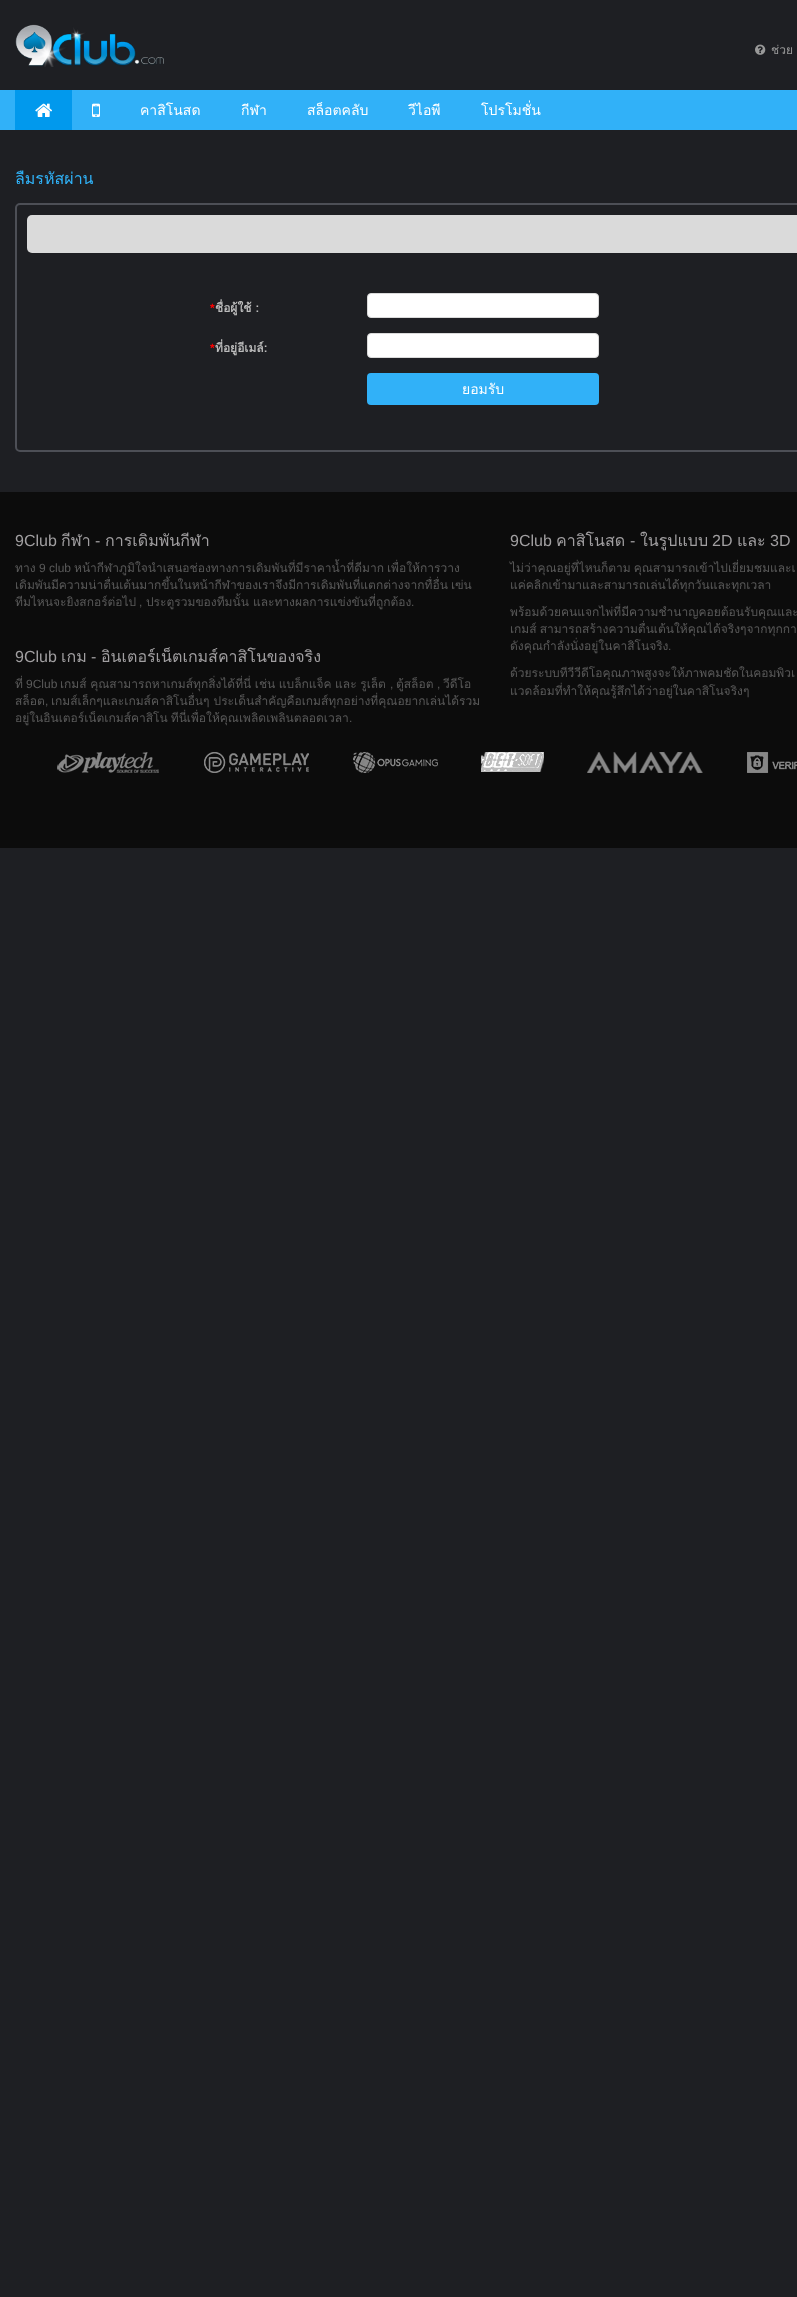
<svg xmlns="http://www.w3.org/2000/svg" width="797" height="2297">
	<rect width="100%" height="100%" fill="#1E1F23" />
	<image x="15" y="24" width="149" height="43" href="assets/img1.png" />
	<image x="755" y="44" width="11" height="11" href="assets/img2.png" />
	<text x="771" y="54" font-family="Loma" font-size="12" fill="#999999">ช่วย</text>
	<rect x="0" y="90" width="797" height="40" fill="#31B1F8" />
	<rect x="15" y="90" width="57" height="40" fill="#0199ED" />
	<image x="35" y="103" width="17" height="14" href="assets/img3.png" />
	<image x="92" y="103" width="8" height="14" href="assets/img4.png" />
	<g font-family="Loma" font-size="14" fill="#FFFFFF">
		<text x="140" y="115">คาสิโนสด</text>
		<text x="241" y="115">กีฬา</text>
		<text x="307" y="115">สล็อตคลับ</text>
		<text x="408" y="115">วีไอพี</text>
		<text x="481" y="115">โปรโมชั่น</text>
	</g>
	<text x="15" y="184" font-family="Loma" font-size="16" fill="#30B3F9">ลืมรหัสผ่าน</text>
	<rect x="16" y="204" width="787" height="247" rx="4" fill="none" stroke="#4D4F56" stroke-width="2" />
	<rect x="27" y="215" width="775" height="38" rx="5" fill="#DADADA" />
	<text x="210" y="312" font-family="Liberation Sans" font-size="12" font-weight="700" fill="#FF0000">*</text>
	<text x="215" y="312" font-family="Loma" font-size="12" font-weight="700" fill="#BBBBBB">ชื่อผู้ใช้ :</text>
	<rect x="367.5" y="293.5" width="231" height="24" rx="3.5" fill="#FFFFFF" stroke="#DADADA" />
	<text x="210" y="352" font-family="Liberation Sans" font-size="12" font-weight="700" fill="#FF0000">*</text>
	<text x="215" y="352" font-family="Loma" font-size="12" font-weight="700" fill="#BBBBBB">ที่อยู่อีเมล์:</text>
	<rect x="367.5" y="333.5" width="231" height="24" rx="3.5" fill="#FFFFFF" stroke="#DADADA" />
	<rect x="367" y="373" width="232" height="32" rx="4" fill="#31B1F8" />
	<text x="462" y="394" font-family="Loma" font-size="14" fill="#FFFFFF">ยอมรับ</text>
	<rect x="0" y="492" width="797" height="356" fill="#0C0C0C" />
	<text x="15" y="546" font-family="Liberation Sans" font-size="16" fill="#A19FA1">9Club</text>
	<text x="61" y="546" font-family="Loma" font-size="16" fill="#A19FA1">กีฬา</text>
	<text x="95" y="546" font-family="Liberation Sans" font-size="16" fill="#A19FA1">-</text>
	<text x="105" y="546" font-family="Loma" font-size="16" fill="#A19FA1">การเดิมพันกีฬา</text>
	<text x="15" y="572" font-family="Loma" font-size="12" fill="#5A5A5A">ทาง</text>
	<text x="39" y="572" font-family="Liberation Sans" font-size="12" fill="#5A5A5A">9 club</text>
	<g font-family="Loma" font-size="12" fill="#5A5A5A">
		<text x="74" y="572">หน้ากีฬาภูมิใจนำเสนอช่องทางการเดิมพันที่มีราคาน้ำที่ดีมาก</text>
		<text x="387" y="572">เพื่อให้การวาง</text>
		<text x="15" y="589" word-spacing="-1">เดิมพันมีความน่าตื่นเต้นมากขึ้นในหน้ากีฬาของเราจึงมีการเดิมพันที่แตกต่างจากทื่อื่น เฃ่น</text>
		<text x="15" y="606">ทีมไหนจะยิงสกอร์ต่อไป</text>
	</g>
	<text x="139" y="606" font-family="Liberation Sans" font-size="12" fill="#5A5A5A">,</text>
	<text x="146" y="606" font-family="Loma" font-size="12" fill="#5A5A5A">ประตูรวมของทีมนั้น และทางผลการแข่งขันที่ถูกต้อง</text>
	<text x="411" y="606" font-family="Liberation Sans" font-size="12" fill="#5A5A5A">.</text>
	<text x="15" y="662" font-family="Liberation Sans" font-size="16" fill="#A19FA1">9Club</text>
	<text x="61" y="662" font-family="Loma" font-size="16" fill="#A19FA1">เกม</text>
	<text x="91" y="662" font-family="Liberation Sans" font-size="16" fill="#A19FA1">-</text>
	<text x="101" y="662" font-family="Loma" font-size="16" fill="#A19FA1">อินเตอร์เน็ตเกมส์คาสิโนของจริง</text>
	<text x="15" y="688" font-family="Loma" font-size="12" fill="#5A5A5A">ที่</text>
	<text x="26" y="688" font-family="Liberation Sans" font-size="12" fill="#5A5A5A">9Club</text>
	<text x="60" y="688" word-spacing="-0.5" font-family="Loma" font-size="12" fill="#5A5A5A">เกมส์ คุณสามารถหาเกมส์ทุกสิ่งได้ที่นี่ เช่น แบล็กแจ็ค และ รูเล็ต</text>
	<text x="390" y="688" font-family="Liberation Sans" font-size="12" fill="#5A5A5A">,</text>
	<text x="396" y="688" font-family="Loma" font-size="12" fill="#5A5A5A">ตู้สล็อต</text>
	<text x="437" y="688" font-family="Liberation Sans" font-size="12" fill="#5A5A5A">,</text>
	<g font-family="Loma" font-size="12" fill="#5A5A5A">
		<text x="443" y="688">วีดีโอ</text>
		<text x="15" y="705">สล็อต</text>
	</g>
	<text x="45" y="705" font-family="Liberation Sans" font-size="12" fill="#5A5A5A">,</text>
	<g font-family="Loma" font-size="12" fill="#5A5A5A">
		<text x="51" y="705">เกมส์เล็กๆและเกมส์คาสิโนอื่นๆ ประเด็นสำคัญคือเกมส์ทุกอย่างที่คุณอยากเล่นได้รวม</text>
		<text x="15" y="722" word-spacing="-1">อยู่ในอินเตอร์เน็ตเกมส์คาสิโน ทีนี่เพื่อให้คุณเพลิดเพลินตลอดเวลา</text>
	</g>
	<text x="349" y="722" font-family="Liberation Sans" font-size="12" fill="#5A5A5A">.</text>
	<text x="510" y="546" font-family="Liberation Sans" font-size="16" fill="#A19FA1">9Club</text>
	<text x="556" y="546" font-family="Loma" font-size="16" fill="#A19FA1">คาสิโนสด</text>
	<text x="630" y="546" font-family="Liberation Sans" font-size="16" fill="#A19FA1">-</text>
	<text x="640" y="546" font-family="Loma" font-size="16" fill="#A19FA1">ในรูปแบบ</text>
	<text x="712" y="546" font-family="Liberation Sans" font-size="16" fill="#A19FA1">2D</text>
	<text x="737" y="546" font-family="Loma" font-size="16" fill="#A19FA1">และ</text>
	<text x="770" y="546" font-family="Liberation Sans" font-size="16" fill="#A19FA1">3D</text>
	<g font-family="Loma" font-size="12" fill="#5A5A5A">
		<text x="510" y="572" word-spacing="-1">ไม่ว่าคุณอยู่ที่ไหนก็ตาม คุณสามารถเข้าไปเยี่ยมชมและเ</text>
		<text x="510" y="589">แค่คลิกเข้ามาและสามารถเล่นได้ทุกวันและทุกเวลา</text>
		<text x="510" y="616">พร้อมด้วยคนแจกไพ่ที่มีความชำนาญคอยต้อนรับคุณและ</text>
		<text x="510" y="633" word-spacing="-1">เกมส์ สามารถสร้างความตื่นเต้นให้คุณได้จริงๆจากทุกกา</text>
		<text x="510" y="650">ดังคุณกำลังนั่งอยู่ในคาสิโนจริง</text>
	</g>
	<text x="668" y="650" font-family="Liberation Sans" font-size="12" fill="#5A5A5A">.</text>
	<g font-family="Loma" font-size="12" fill="#5A5A5A">
		<text x="510" y="677" word-spacing="-1">ด้วยระบบทีวีวีดีโอคุณภาพสูงจะให้ภาพคมชัดในคอมพิวเ</text>
		<text x="510" y="695">แวดล้อมที่ทำให้คุณรู้สึกได้ว่าอยู่ในคาสิโนจริงๆ</text>
	</g>
	<image x="57" y="752" width="102" height="21" href="assets/img5.png" />
	<image x="204" y="752" width="105" height="21" href="assets/img6.png" />
	<image x="353" y="752" width="85" height="21" href="assets/img7.png" />
	<image x="481" y="752" width="63" height="20" href="assets/img8.png" />
	<image x="587" y="752" width="116" height="21" href="assets/img9.png" />
	<image x="747" y="752" width="50" height="21" href="assets/img10.png" />
</svg>
